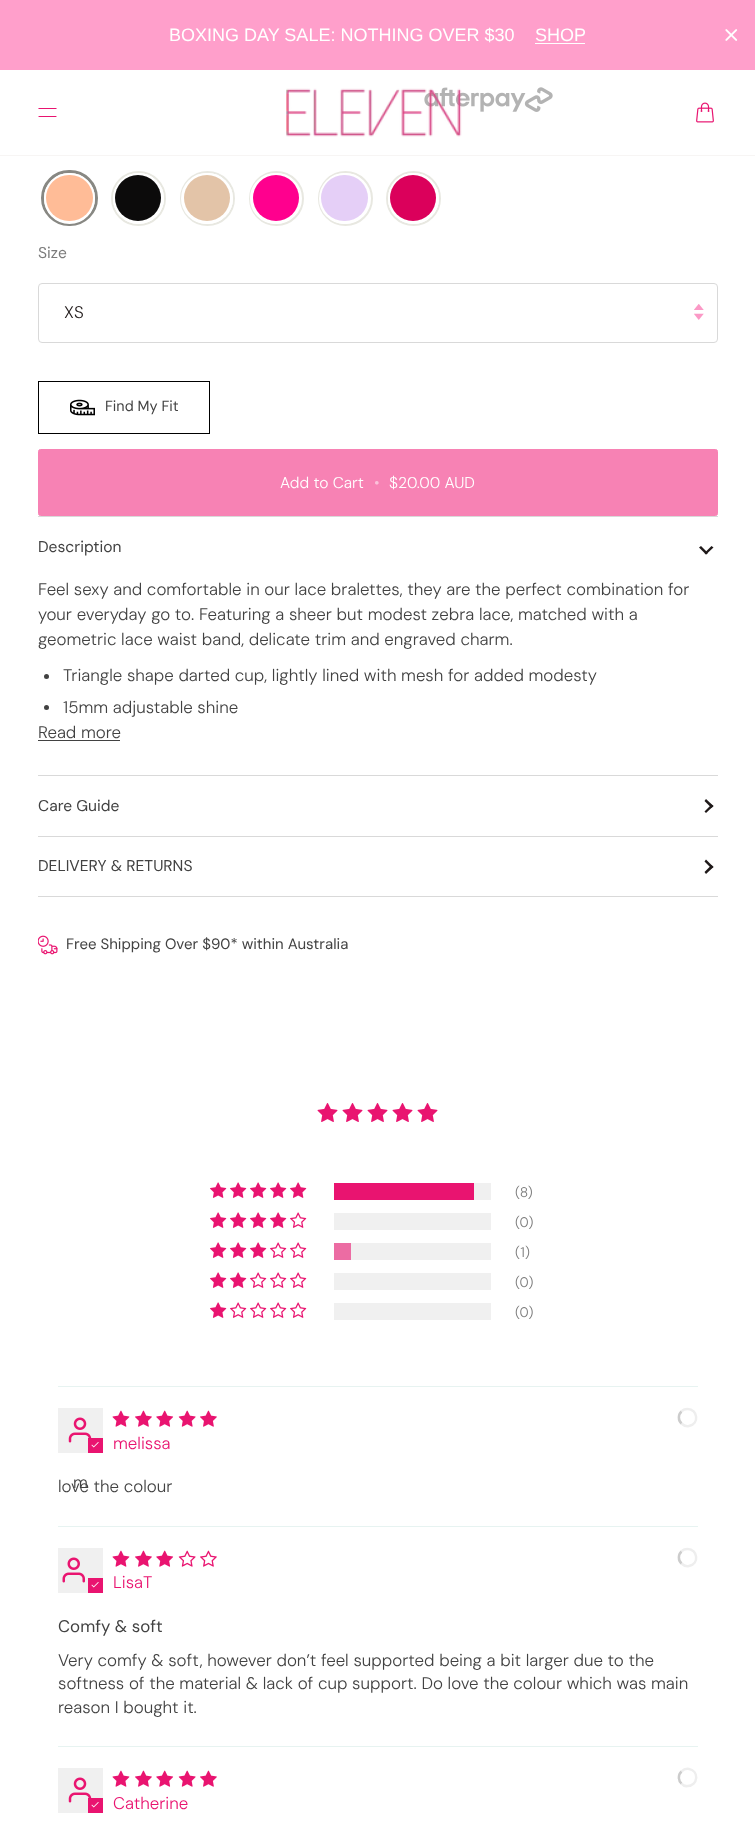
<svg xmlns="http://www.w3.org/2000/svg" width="755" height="1842">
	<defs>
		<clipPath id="clip1"><rect x="38" y="108" width="20" height="10" /></clipPath>
	</defs>
	<rect width="100%" height="100%" fill="#FFFFFF" />
	<rect x="0" y="0" width="755" height="70" fill="#FF9FCB" />
	<g font-family="Liberation Sans" font-size="18" fill="#FFFFFF">
		<text x="169" y="41">BOXING DAY SALE: NOTHING OVER $30</text>
		<text x="535" y="41">SHOP</text>
	</g>
	<rect x="535" y="43" width="50" height="1" fill="#FFFFFF" />
	<image x="725" y="29" width="13" height="12" href="assets/img1.png" />
	<rect x="0" y="155" width="755" height="1" fill="#F7F5F4" />
	<image x="424" y="87" width="129" height="25" href="assets/img4.png" />
	<rect x="424" y="87" width="129" height="25" fill="#FFFFFF" fill-opacity="0.7" />
	<g clip-path="url(#clip1)">
		<path d="M39 108.5H56M39 116.5H56" fill="none" stroke="#E81470" stroke-width="1.2" stroke-linecap="round" stroke-linejoin="round" />
	</g>
	<image x="286" y="88" width="176" height="49" href="assets/img2.png" />
	<image x="696" y="102" width="18" height="21" href="assets/img3.png" />
	<rect x="42.5" y="171.5" width="54" height="53" rx="26.5" fill="none" stroke="#888883" stroke-width="3" />
	<circle cx="69.5" cy="198.5" r="24" fill="none" stroke="#FFFFFF" stroke-width="3" />
	<rect x="46" y="175" width="47" height="46" rx="23" fill="#FFBC97" />
	<circle cx="138.5" cy="198.5" r="26.5" fill="none" stroke="#E8E8E1" stroke-width="2" />
	<circle cx="138.5" cy="198.5" r="24" fill="none" stroke="#FFFFFF" stroke-width="3" />
	<circle cx="138" cy="198" r="23" fill="#0C0B0B" />
	<circle cx="207.5" cy="198.5" r="26.5" fill="none" stroke="#E8E8E1" stroke-width="2" />
	<rect x="182.5" y="174.5" width="49" height="48" rx="24" fill="none" stroke="#FFFFFF" stroke-width="3" />
	<circle cx="207" cy="198" r="23" fill="#E3C4A8" />
	<circle cx="276.5" cy="198.5" r="26.5" fill="none" stroke="#E8E8E1" stroke-width="2" />
	<circle cx="275.5" cy="198.5" r="24" fill="none" stroke="#FFFFFF" stroke-width="3" />
	<circle cx="276" cy="198" r="23" fill="#FF008E" />
	<circle cx="345.5" cy="198.5" r="26.5" fill="none" stroke="#E8E8E1" stroke-width="2" />
	<circle cx="344.5" cy="198.5" r="24" fill="none" stroke="#FFFFFF" stroke-width="3" />
	<rect x="321" y="175" width="47" height="46" rx="23" fill="#E5CFF7" />
	<circle cx="413.5" cy="198.5" r="26.5" fill="none" stroke="#E8E8E1" stroke-width="2" />
	<circle cx="413.5" cy="198.5" r="24" fill="none" stroke="#FFFFFF" stroke-width="3" />
	<circle cx="413" cy="198" r="23" fill="#DB005B" />
	<text x="38" y="258" font-family="'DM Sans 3'" font-size="15.6" fill="#7B7B7B">Size</text>
	<rect x="38.5" y="283.5" width="679" height="59" rx="3.5" fill="none" stroke="#D9D9D9" />
	<text x="64" y="318" font-family="'DM Sans 3'" font-size="16.9" font-weight="300" fill="#1F1919">XS</text>
	<image x="694" y="304" width="10" height="16" href="assets/img5.png" />
	<rect x="38.5" y="381.5" width="171" height="52" fill="none" stroke="#000000" />
	<image x="70" y="399" width="25" height="17" href="assets/img6.png" />
	<text x="105" y="411" font-family="'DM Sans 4'" font-size="14.5" fill="#424242">Find My Fit</text>
	<rect x="38.5" y="449.5" width="679" height="66" rx="2" fill="#F782B4" stroke="#F782B4" />
	<text x="280" y="488" font-family="'DM Sans 4'" font-size="15.6" font-weight="300" fill="#FFFFFF">Add to Cart</text>
	<text x="374" y="488" font-family="'DM Sans 4'" font-size="15.6" font-weight="300" fill="#FBC1DA">•</text>
	<text x="389" y="488" font-family="'DM Sans 4'" font-size="15.6" font-weight="300" fill="#FFFFFF">$20.00 AUD</text>
	<rect x="38" y="516" width="680" height="1" fill="#D9D9D9" />
	<rect x="38" y="775" width="680" height="1" fill="#D9D9D9" />
	<text x="38" y="552" font-family="'DM Sans 3'" font-size="15.6" fill="#424242">Description</text>
	<path d="M704.5 553L711.5 546L713.5 547.5L706 554.5Z" fill="#1F1919" />
	<path d="M699 547.5L701 546L708 553L706 554.5Z" fill="#1F1919" />
	<g font-family="'DM Sans 3'" font-size="16.9" font-weight="300" fill="#424242">
		<text x="38" y="595">Feel sexy and comfortable in our lace bralettes, they are the perfect combination for</text>
		<text x="38" y="620">your everyday go to. Featuring a sheer but modest zebra lace, matched with a</text>
		<text x="38" y="645">geometric lace waist band, delicate trim and engraved charm.</text>
	</g>
	<circle cx="46.5" cy="676.5" r="2.5" fill="#424242" />
	<text x="63" y="681" font-family="'DM Sans 3'" font-size="16.9" font-weight="300" fill="#424242">Triangle shape darted cup, lightly lined with mesh for added modesty</text>
	<circle cx="46.5" cy="707.5" r="2.5" fill="#424242" />
	<g font-family="'DM Sans 3'" font-size="16.9" font-weight="300" fill="#424242">
		<text x="63" y="713">15mm adjustable shine</text>
		<text x="38" y="738">Read more</text>
	</g>
	<rect x="38" y="740" width="82" height="1" fill="#424242" />
	<rect x="38" y="836" width="680" height="1" fill="#D9D9D9" />
	<text x="38" y="811" font-family="'DM Sans 3'" font-size="15.6" fill="#424242">Care Guide</text>
	<path d="M711.5 808L704.5 801L706 799L713.5 806Z" fill="#1F1919" />
	<path d="M706 813L704.5 811.5L711.5 804.5L713.5 806Z" fill="#1F1919" />
	<rect x="38" y="896" width="680" height="1" fill="#D9D9D9" />
	<text x="38" y="871" font-family="'DM Sans 3'" font-size="15.6" fill="#424242">DELIVERY &amp; RETURNS</text>
	<path d="M711.5 868.5L704.5 861.5L706 859.5L713.5 867Z" fill="#1F1919" />
	<path d="M706 874L704.5 872L711.5 865L713.5 867Z" fill="#1F1919" />
	<image x="38" y="935" width="20" height="20" href="assets/img7.png" />
	<text x="66" y="949" font-family="'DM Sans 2'" font-size="15" fill="#424242">Free Shipping Over $90* within Australia</text>
	<image x="317" y="1103" width="21" height="19" href="assets/img8.png" />
	<image x="342" y="1103" width="21" height="19" href="assets/img8.png" />
	<image x="367" y="1103" width="21" height="19" href="assets/img8.png" />
	<image x="392" y="1103" width="21" height="19" href="assets/img8.png" />
	<image x="417" y="1103" width="21" height="19" href="assets/img8.png" />
	<image x="210" y="1182" width="17" height="16" href="assets/img9.png" />
	<image x="230" y="1182" width="17" height="16" href="assets/img9.png" />
	<image x="250" y="1182" width="17" height="16" href="assets/img9.png" />
	<image x="270" y="1182" width="17" height="16" href="assets/img9.png" />
	<image x="290" y="1182" width="17" height="16" href="assets/img9.png" />
	<rect x="474" y="1183" width="17" height="17" fill="#F0F0F0" />
	<rect x="334" y="1183" width="140" height="17" fill="#E91470" />
	<text x="515" y="1197" font-family="DM Sans" font-size="14" font-weight="300" fill="#7B7B7B">(8)</text>
	<image x="210" y="1212" width="17" height="16" href="assets/img9.png" />
	<image x="230" y="1212" width="17" height="16" href="assets/img9.png" />
	<image x="250" y="1212" width="17" height="16" href="assets/img9.png" />
	<image x="270" y="1212" width="17" height="16" href="assets/img9.png" />
	<image x="290" y="1212" width="17" height="16" href="assets/img10.png" />
	<rect x="334" y="1213" width="157" height="17" fill="#F0F0F0" />
	<text x="515" y="1227" font-family="DM Sans" font-size="14" font-weight="300" fill="#7B7B7B">(0)</text>
	<image x="210" y="1242" width="17" height="16" href="assets/img9.png" />
	<image x="230" y="1242" width="17" height="16" href="assets/img9.png" />
	<image x="250" y="1242" width="17" height="16" href="assets/img9.png" />
	<image x="270" y="1242" width="17" height="16" href="assets/img10.png" />
	<image x="290" y="1242" width="17" height="16" href="assets/img10.png" />
	<rect x="351" y="1243" width="140" height="17" fill="#F0F0F0" />
	<rect x="334" y="1243" width="17" height="17" fill="#EC6CA3" />
	<text x="515" y="1257" font-family="'DM Sans 2'" font-size="14" font-weight="300" fill="#7B7B7B">(1)</text>
	<image x="210" y="1272" width="17" height="16" href="assets/img9.png" />
	<image x="230" y="1272" width="17" height="16" href="assets/img9.png" />
	<image x="250" y="1272" width="17" height="16" href="assets/img10.png" />
	<image x="270" y="1272" width="17" height="16" href="assets/img10.png" />
	<image x="290" y="1272" width="17" height="16" href="assets/img10.png" />
	<rect x="334" y="1273" width="157" height="17" fill="#F0F0F0" />
	<text x="515" y="1287" font-family="DM Sans" font-size="14" font-weight="300" fill="#7B7B7B">(0)</text>
	<image x="210" y="1302" width="17" height="16" href="assets/img9.png" />
	<image x="230" y="1302" width="17" height="16" href="assets/img10.png" />
	<image x="250" y="1302" width="17" height="16" href="assets/img10.png" />
	<image x="270" y="1302" width="17" height="16" href="assets/img10.png" />
	<image x="290" y="1302" width="17" height="16" href="assets/img10.png" />
	<rect x="334" y="1303" width="157" height="17" fill="#F0F0F0" />
	<text x="515" y="1317" font-family="DM Sans" font-size="14" font-weight="300" fill="#7B7B7B">(0)</text>
	<rect x="58" y="1386" width="640" height="1" fill="#E7F3F1" />
	<image x="112" y="1410" width="18" height="17" href="assets/img11.png" />
	<image x="135" y="1410" width="17" height="17" href="assets/img12.png" />
	<image x="156" y="1410" width="18" height="17" href="assets/img13.png" />
	<image x="178" y="1410" width="18" height="17" href="assets/img14.png" />
	<image x="200" y="1410" width="17" height="17" href="assets/img12.png" />
	<path d="M681.5 1411.5C683 1409.5 685 1409 687.5 1409C698 1409 699.5 1424 689 1426C686.5 1426.5 683.5 1425.5 681.5 1423.5" fill="none" stroke="#EEEEEE" stroke-width="2.5" />
	<path d="M681.5 1423.5C678 1420.5 678 1414.5 681.5 1411.5" fill="none" stroke="#CCCCCC" stroke-width="2.5" />
	<text x="113" y="1449" font-family="'DM Sans 3'" font-size="16.9" font-weight="300" fill="#E91470">melissa</text>
	<rect x="58" y="1408" width="45" height="45" fill="#F0F0F0" />
	<image x="68" y="1417" width="24" height="26" href="assets/img15.png" />
	<rect x="88" y="1438" width="15" height="15" fill="#E91470" />
	<image x="91" y="1442" width="8" height="6" href="assets/img16.png" />
	<g font-family="'DM Sans 3'" font-size="16.9" font-weight="300" fill="#424242">
		<text x="58" y="1492">love the colour</text>
		<text x="73" y="1488">m</text>
	</g>
	<rect x="58" y="1526" width="640" height="1" fill="#E7F3F1" />
	<rect x="58" y="1548" width="45" height="45" fill="#F0F0F0" />
	<image x="62" y="1557" width="23" height="26" href="assets/img17.png" />
	<rect x="88" y="1578" width="15" height="15" fill="#E91470" />
	<image x="91" y="1582" width="8" height="6" href="assets/img16.png" />
	<image x="112" y="1550" width="18" height="17" href="assets/img11.png" />
	<image x="135" y="1550" width="17" height="17" href="assets/img12.png" />
	<image x="156" y="1550" width="18" height="17" href="assets/img13.png" />
	<image x="178" y="1550" width="18" height="17" href="assets/img18.png" />
	<image x="200" y="1550" width="17" height="17" href="assets/img19.png" />
	<path d="M681.5 1551.5C683 1549.5 685 1549 687.5 1549C698 1549 699.5 1564 689 1566C686.5 1566.5 683.5 1565.5 681.5 1563.5" fill="none" stroke="#EEEEEE" stroke-width="2.5" />
	<path d="M681.5 1563.5C678 1560.5 678 1554.5 681.5 1551.5" fill="none" stroke="#CCCCCC" stroke-width="2.5" />
	<text x="113" y="1588" font-family="'DM Sans 3'" font-size="16.9" font-weight="300" fill="#E91470">LisaT</text>
	<text x="58" y="1632" font-family="DM Sans" font-size="16.9" fill="#424242">Comfy &amp; soft</text>
	<g font-family="'DM Sans 3'" font-size="16.9" font-weight="300" fill="#424242">
		<text x="58" y="1666">Very comfy &amp; soft, however don’t feel supported being a bit larger due to the</text>
		<text x="58" y="1689">softness of the material &amp; lack of cup support. Do love the colour which was main</text>
		<text x="58" y="1713">reason I bought it.</text>
	</g>
	<rect x="58" y="1746" width="640" height="1" fill="#E7F3F1" />
	<rect x="58" y="1768" width="45" height="45" fill="#F0F0F0" />
	<image x="68" y="1777" width="24" height="26" href="assets/img15.png" />
	<rect x="88" y="1798" width="15" height="15" fill="#E91470" />
	<image x="91" y="1802" width="8" height="6" href="assets/img16.png" />
	<image x="112" y="1770" width="18" height="17" href="assets/img11.png" />
	<image x="135" y="1770" width="17" height="17" href="assets/img12.png" />
	<image x="156" y="1770" width="18" height="17" href="assets/img13.png" />
	<image x="178" y="1770" width="18" height="17" href="assets/img14.png" />
	<image x="200" y="1770" width="17" height="17" href="assets/img12.png" />
	<path d="M681.5 1771.5C683.5 1769.5 686.5 1768.5 689 1769C699.5 1771 698 1786 687.5 1786C685 1786.5 683 1785.5 681.5 1783.5" fill="none" stroke="#EEEEEE" stroke-width="2.5" />
	<path d="M681.5 1783.5C678 1780.5 678 1774.5 681.5 1771.5" fill="none" stroke="#CCCCCC" stroke-width="2.5" />
	<text x="113" y="1809" font-family="'DM Sans 3'" font-size="16.9" font-weight="300" fill="#E91470">Catherine</text>
</svg>
